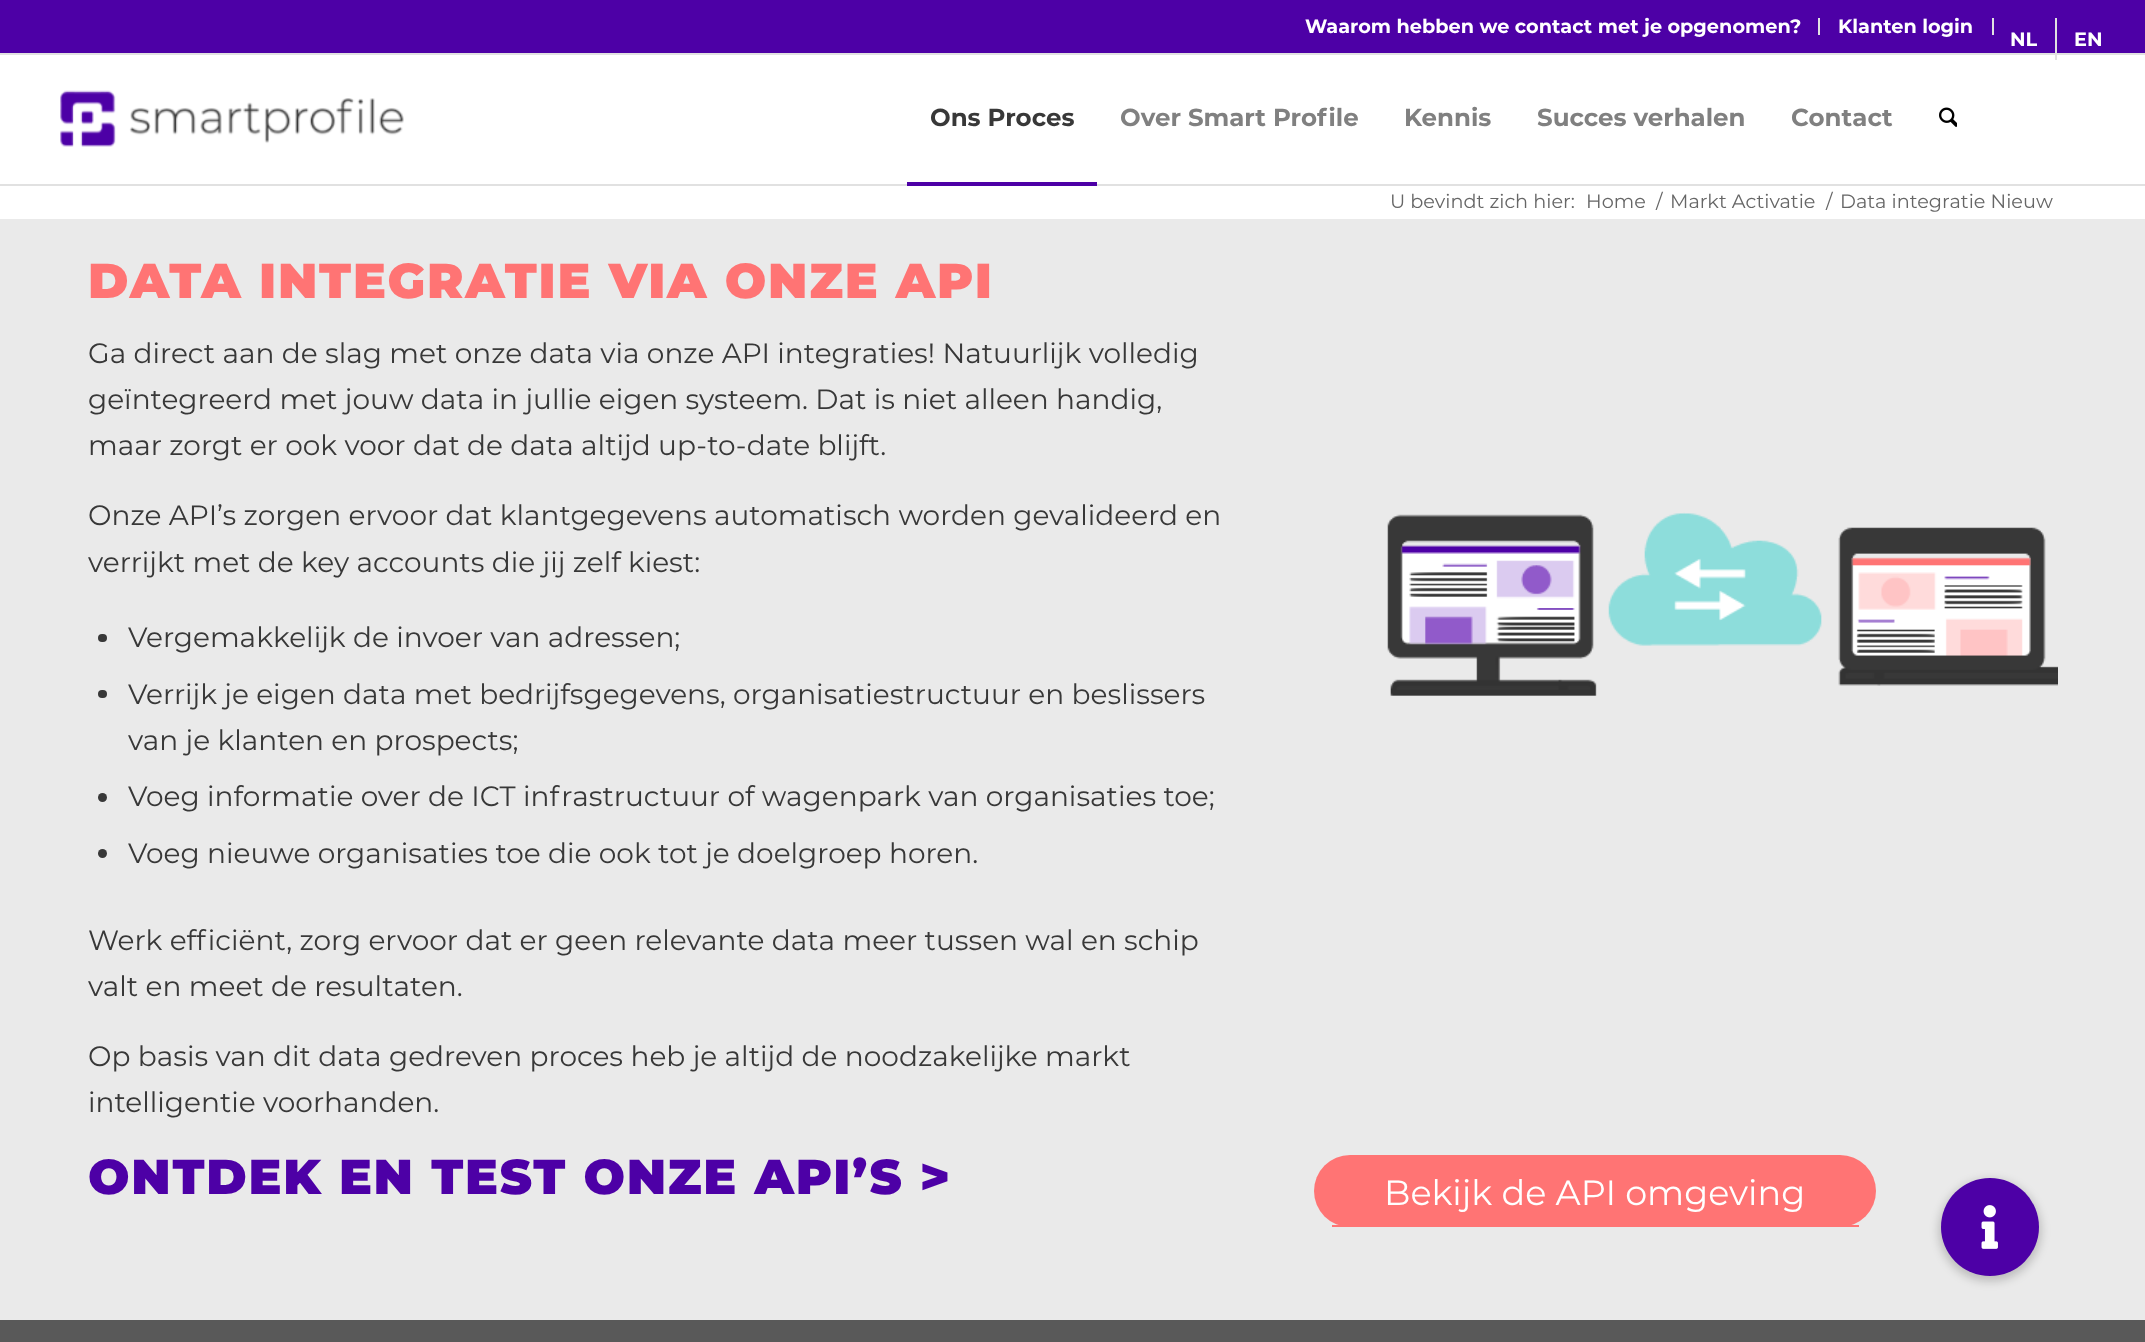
<svg xmlns="http://www.w3.org/2000/svg" width="2145" height="1342">
	<rect width="100%" height="100%" fill="#FFFFFF" />
	<rect x="0" y="0" width="2145" height="53" fill="#4D00A6" />
	<rect x="0" y="53" width="2145" height="2" fill="#E1E1E1" />
	<rect x="1818" y="18" width="2" height="17" fill="#E1E1E1" />
	<text x="1305" y="33" font-family="Montserrat" font-size="19.25" font-weight="700" fill="#FFFFFF">Waarom hebben we contact met je opgenomen?</text>
	<rect x="1992" y="18" width="2" height="17" fill="#E1E1E1" />
	<text x="1838" y="33" font-family="Montserrat" font-size="19.25" font-weight="700" fill="#FFFFFF">Klanten login</text>
	<rect x="2055" y="18" width="2" height="42" fill="#E1E1E1" />
	<g font-family="Montserrat" font-size="19.25" font-weight="700" fill="#FFFFFF">
		<text x="2010" y="46">NL</text>
		<text x="2074" y="46">EN</text>
	</g>
	<rect x="0" y="184" width="2145" height="2" fill="#E1E1E1" />
	<image x="60" y="90" width="344" height="57" href="assets/img1.png" />
	<text x="930" y="126" font-family="Montserrat" font-size="24.5" font-weight="700" fill="#383838">Ons Proces</text>
	<rect x="907" y="182" width="190" height="4" fill="#4D00A6" />
	<g font-family="Montserrat" font-size="24.5" font-weight="700" fill="#808080">
		<text x="1120" y="126">Over Smart Profile</text>
		<text x="1404" y="126">Kennis</text>
		<text x="1537" y="126">Succes verhalen</text>
		<text x="1791" y="126">Contact</text>
	</g>
	<image x="1939" y="107" width="18" height="20" href="assets/img2.png" />
	<g font-family="Montserrat" font-size="19.25" fill="#666666">
		<text x="1390" y="208">U bevindt zich hier:</text>
		<text x="1586" y="208">Home</text>
		<text x="1656" y="208">/</text>
		<text x="1670" y="208">Markt Activatie</text>
		<text x="1826" y="208">/</text>
		<text x="1840" y="208">Data integratie Nieuw</text>
	</g>
	<rect x="0" y="219" width="2145" height="1101" fill="#EAEAEA" />
	<text x="88" y="298" font-family="Montserrat" font-size="49" font-weight="900" letter-spacing="1.75" fill="#FF7474">DATA INTEGRATIE VIA ONZE API</text>
	<g font-family="Montserrat" font-size="28" fill="#383838">
		<text x="88" y="363">Ga direct aan de slag met onze data via onze API integraties! Natuurlijk volledig</text>
		<text x="88" y="409">geïntegreerd met jouw data in jullie eigen systeem. Dat is niet alleen handig,</text>
		<text x="88" y="455">maar zorgt er ook voor dat de data altijd up-to-date blijft.</text>
		<text x="88" y="525">Onze API’s zorgen ervoor dat klantgegevens automatisch worden gevalideerd en</text>
		<text x="88" y="572">verrijkt met de key accounts die jij zelf kiest:</text>
	</g>
	<rect x="98" y="634" width="9" height="8" rx="4" fill="#383838" />
	<text x="128" y="647" font-family="Montserrat" font-size="28" fill="#383838">Vergemakkelijk de invoer van adressen;</text>
	<rect x="98" y="690" width="9" height="8" rx="4" fill="#383838" />
	<g font-family="Montserrat" font-size="28" fill="#383838">
		<text x="128" y="704">Verrijk je eigen data met bedrijfsgegevens, organisatiestructuur en beslissers</text>
		<text x="128" y="750">van je klanten en prospects;</text>
	</g>
	<circle cx="102.5" cy="797.5" r="4.5" fill="#383838" />
	<text x="128" y="806" font-family="Montserrat" font-size="28" fill="#383838">Voeg informatie over de ICT infrastructuur of wagenpark van organisaties toe;</text>
	<circle cx="102.5" cy="853.5" r="4.5" fill="#383838" />
	<g font-family="Montserrat" font-size="28" fill="#383838">
		<text x="128" y="863">Voeg nieuwe organisaties toe die ook tot je doelgroep horen.</text>
		<text x="88" y="950">Werk efficiënt, zorg ervoor dat er geen relevante data meer tussen wal en schip</text>
		<text x="88" y="996">valt en meet de resultaten.</text>
		<text x="88" y="1066">Op basis van dit data gedreven proces heb je altijd de noodzakelijke markt</text>
		<text x="88" y="1112">intelligentie voorhanden.</text>
	</g>
	<image x="1387" y="512" width="671" height="184" href="assets/img3.png" />
	<text x="88" y="1194" font-family="Montserrat" font-size="49" font-weight="900" letter-spacing="1.75" fill="#4D00A6">ONTDEK EN TEST ONZE API’S &gt;</text>
	<rect x="1314" y="1155" width="562" height="72" rx="36" fill="#FF7474" />
	<rect x="1332" y="1225" width="527" height="2" fill="#FF7474" />
	<text x="1384" y="1205" font-family="Montserrat" font-size="35" fill="#FFFFFF">Bekijk de API omgeving</text>
	<rect x="0" y="1320" width="2145" height="22" fill="#595959" />
	<rect x="1939" y="1180" width="102" height="101" rx="50.5" fill="#000000" fill-opacity="0.2" filter="blur(5px)" />
	<circle cx="1990" cy="1227" r="49" fill="#4D00A6" />
	<image x="1981" y="1205" width="17" height="44" href="assets/img4.png" />
</svg>
